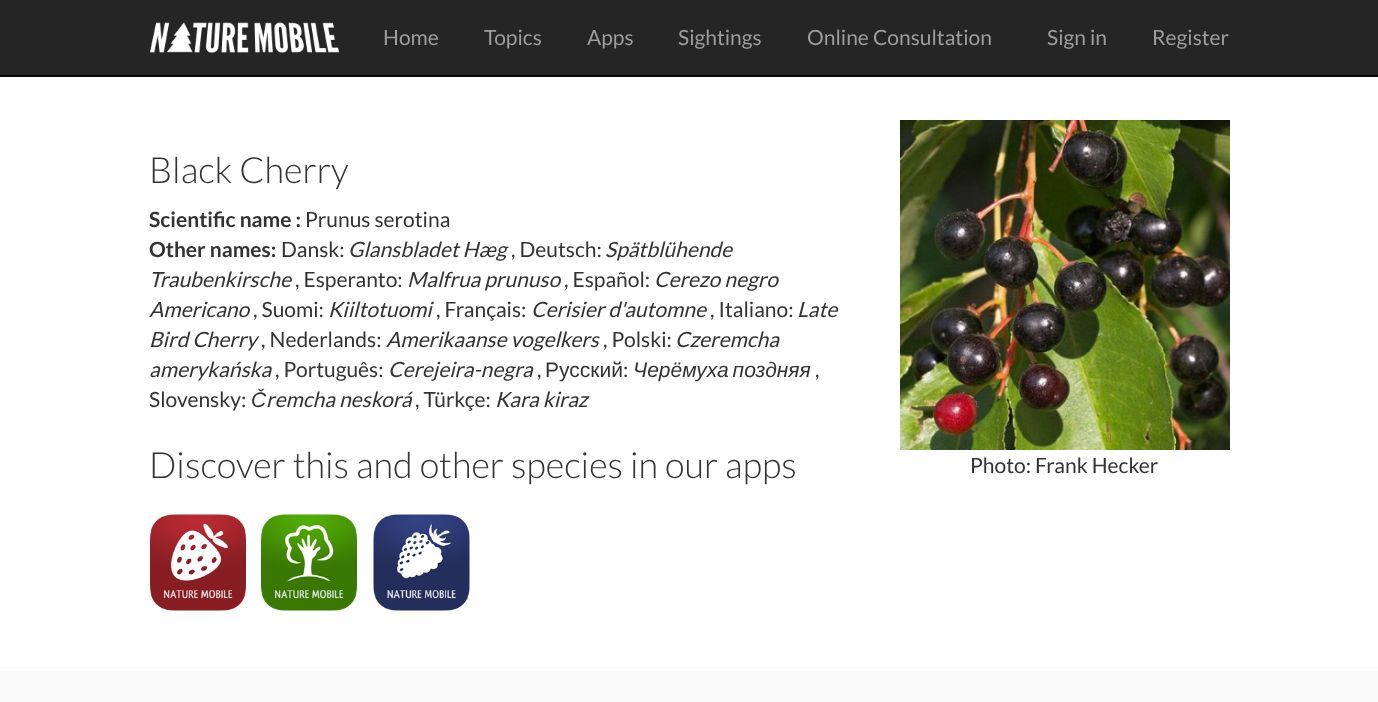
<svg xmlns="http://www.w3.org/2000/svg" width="1378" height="702">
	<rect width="100%" height="100%" fill="#FFFFFF" />
	<rect x="0" y="0" width="1378" height="75" fill="#252525" />
	<rect x="0" y="75" width="1378" height="2" fill="#080808" />
	<image x="150" y="22" width="189" height="31" href="assets/img1.png" />
	<g font-family="Lato" font-size="21" fill="#9D9D9D">
		<text x="383" y="45">Home</text>
		<text x="484" y="45">Topics</text>
		<text x="587" y="45">Apps</text>
		<text x="678" y="45">Sightings</text>
		<text x="807" y="45">Online Consultation</text>
		<text x="1047" y="45">Sign in</text>
		<text x="1152" y="45">Register</text>
	</g>
	<text x="149" y="183" font-family="Lato" font-size="36" font-weight="300" fill="#333333">Black Cherry</text>
	<text x="149" y="227" font-family="Lato" font-size="21" font-weight="700" fill="#333333">Scientific name :</text>
	<text x="305" y="227" font-family="Lato" font-size="21" fill="#333333">Prunus serotina</text>
	<text x="149" y="257" font-family="Lato" font-size="21" font-weight="700" fill="#333333">Other names:</text>
	<text x="281" y="257" font-family="Lato" font-size="21" fill="#333333">Dansk:</text>
	<text x="348" y="257" font-family="Lato" font-size="21" font-style="italic" fill="#333333">Glansbladet Hæg</text>
	<text x="511" y="257" font-family="Lato" font-size="21" fill="#333333">, Deutsch:</text>
	<g font-family="Lato" font-size="21" font-style="italic" fill="#333333">
		<text x="605" y="257">Spätblühende</text>
		<text x="149" y="287">Traubenkirsche</text>
	</g>
	<text x="295" y="287" font-family="Lato" font-size="21" fill="#333333">, Esperanto:</text>
	<text x="407" y="287" font-family="Lato" font-size="21" font-style="italic" fill="#333333">Malfrua prunuso</text>
	<text x="564" y="287" font-family="Lato" font-size="21" fill="#333333">, Español:</text>
	<g font-family="Lato" font-size="21" font-style="italic" fill="#333333">
		<text x="654" y="287">Cerezo negro</text>
		<text x="149" y="317">Americano</text>
	</g>
	<text x="253" y="317" font-family="Lato" font-size="21" fill="#333333">, Suomi:</text>
	<text x="328" y="317" font-family="Lato" font-size="21" font-style="italic" fill="#333333">Kiiltotuomi</text>
	<text x="436" y="317" font-family="Lato" font-size="21" fill="#333333">, Français:</text>
	<text x="531" y="317" font-family="Lato" font-size="21" font-style="italic" fill="#333333">Cerisier d'automne</text>
	<text x="710" y="317" font-family="Lato" font-size="21" fill="#333333">, Italiano:</text>
	<g font-family="Lato" font-size="21" font-style="italic" fill="#333333">
		<text x="797" y="317">Late</text>
		<text x="149" y="347">Bird Cherry</text>
	</g>
	<text x="261" y="347" font-family="Lato" font-size="21" fill="#333333">, Nederlands:</text>
	<text x="386" y="347" font-family="Lato" font-size="21" font-style="italic" fill="#333333">Amerikaanse vogelkers</text>
	<text x="603" y="347" font-family="Lato" font-size="21" fill="#333333">, Polski:</text>
	<g font-family="Lato" font-size="21" font-style="italic" fill="#333333">
		<text x="675" y="347">Czeremcha</text>
		<text x="149" y="377">amerykańska</text>
	</g>
	<text x="275" y="377" font-family="Lato" font-size="21" fill="#333333">, Português:</text>
	<text x="388" y="377" font-family="Lato" font-size="21" font-style="italic" fill="#333333">Cerejeira-negra</text>
	<text x="537" y="377" font-family="Lato" font-size="21" fill="#333333">,</text>
	<text x="545" y="377" font-family="Liberation Sans" font-size="21" fill="#333333">Русский</text>
	<text x="623" y="377" font-family="Lato" font-size="21" fill="#333333">:</text>
	<text x="633" y="377" word-spacing="-2" font-family="Liberation Sans" font-size="21" font-style="italic" fill="#333333">Черёмуха поздняя</text>
	<g font-family="Lato" font-size="21" fill="#333333">
		<text x="815" y="377">,</text>
		<text x="149" y="407">Slovensky:</text>
	</g>
	<text x="251" y="407" font-family="Liberation Sans" font-size="21" font-style="italic" fill="#333333">Č</text>
	<text x="266" y="407" font-family="Lato" font-size="21" font-style="italic" fill="#333333">remcha neskorá</text>
	<text x="415" y="407" font-family="Lato" font-size="21" fill="#333333">, Türkçe:</text>
	<text x="495" y="407" font-family="Lato" font-size="21" font-style="italic" fill="#333333">Kara kiraz</text>
	<text x="149" y="478" font-family="Lato" font-size="36" font-weight="300" fill="#333333">Discover this and other species in our apps</text>
	<image x="150" y="514" width="96" height="97" href="assets/img2.png" />
	<image x="261" y="514" width="96" height="97" href="assets/img3.png" />
	<image x="373" y="514" width="97" height="97" href="assets/img4.png" />
	<image x="900" y="120" width="330" height="330" href="assets/img5.png" />
	<text x="970" y="473" font-family="Lato" font-size="21" fill="#333333">Photo: Frank Hecker</text>
	<rect x="0" y="671" width="1378" height="31" fill="#FAFAFA" />
</svg>
